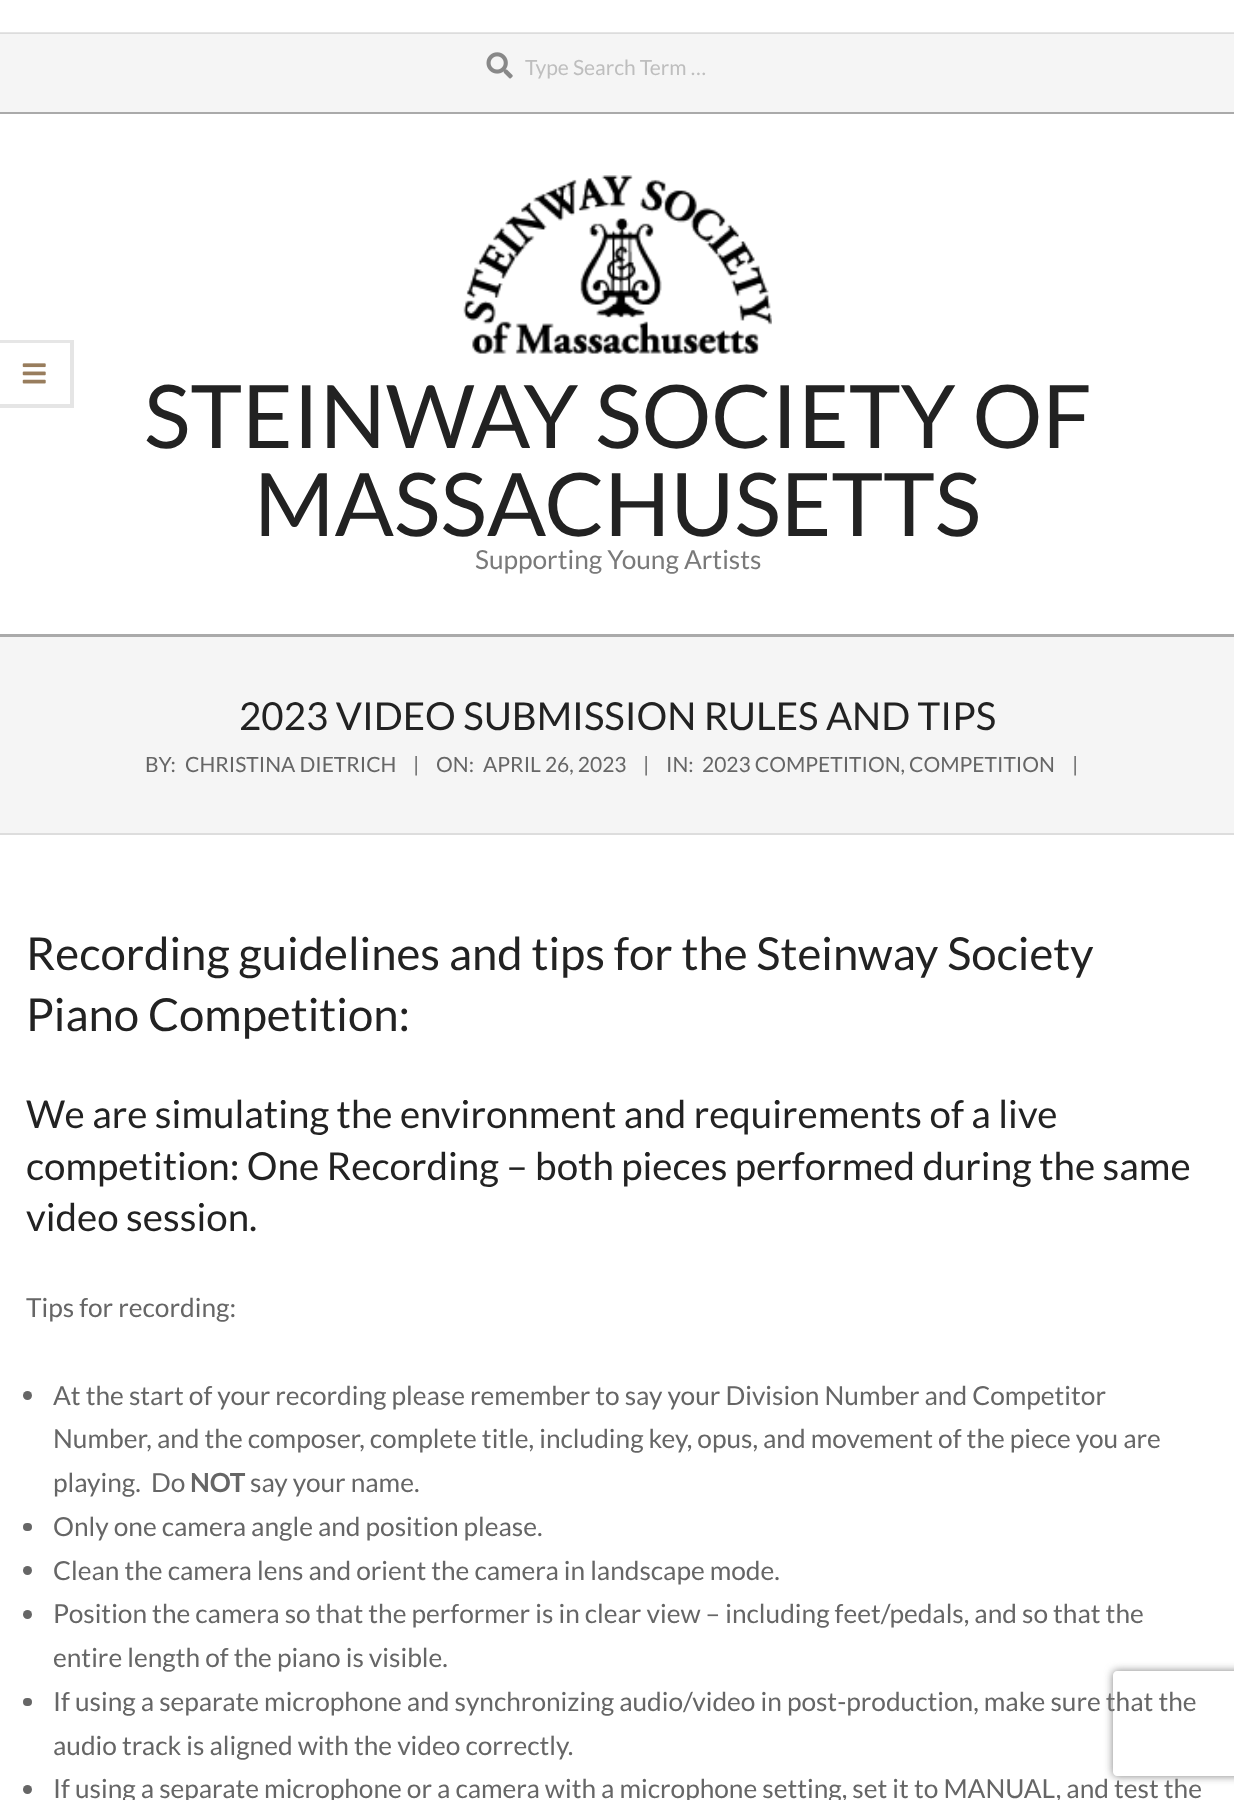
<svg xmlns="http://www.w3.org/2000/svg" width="1234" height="1800">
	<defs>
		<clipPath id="clip1"><path d="M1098 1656H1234V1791H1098ZM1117 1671H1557C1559 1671 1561 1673 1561 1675V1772C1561 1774 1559 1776 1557 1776H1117C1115 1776 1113 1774 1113 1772V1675C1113 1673 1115 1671 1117 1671Z" clip-rule="evenodd" /></clipPath>
	</defs>
	<rect width="100%" height="100%" fill="#FFFFFF" />
	<rect x="0" y="34" width="1234" height="78" fill="#F5F5F5" />
	<rect x="0" y="112" width="1234" height="2" fill="#AAAAAA" />
	<rect x="0" y="32" width="1234" height="1" fill="#E5E5E5" />
	<rect x="0" y="33" width="1234" height="1" fill="#DCDCDC" />
	<image x="486" y="52" width="27" height="27" href="assets/img1.png" />
	<text x="525" y="75" font-family="Lato" font-size="21" fill="#BEBEBE">Type Search Term …</text>
	<path d="M0 340H74L70 343H0Z" fill="#E6E6E6" />
	<path d="M74 340V408L70 404V343Z" fill="#000000" fill-opacity="0.1" />
	<path d="M74 408H0V404H70Z" fill="#000000" fill-opacity="0.1" />
	<image x="22" y="363" width="24" height="21" href="assets/img2.png" />
	<rect x="0" y="634" width="1234" height="3" fill="#AAAAAA" />
	<image x="463" y="175" width="309" height="179" href="assets/img3.png" />
	<g font-family="Lato" font-size="87.5" fill="#222222">
		<text x="144" y="448">STEINWAY SOCIETY OF</text>
		<text x="254" y="536">MASSACHUSETTS</text>
	</g>
	<text x="475" y="569" font-family="Lato" font-size="26.25" fill="#7A7A7A">Supporting Young Artists</text>
	<rect x="0" y="637" width="1234" height="196" fill="#F5F5F5" />
	<rect x="0" y="833" width="1234" height="2" fill="#DDDDDD" />
	<text x="239" y="730" font-family="Lato" font-size="38.5" fill="#222222">2023 VIDEO SUBMISSION RULES AND TIPS</text>
	<g font-family="Lato" font-size="21" fill="#666666">
		<text x="145" y="772">BY:</text>
		<text x="185" y="772">CHRISTINA DIETRICH</text>
		<text x="413" y="772">|</text>
		<text x="436" y="772">ON:</text>
		<text x="483" y="772">APRIL 26, 2023</text>
		<text x="643" y="772">|</text>
		<text x="666" y="772">IN:</text>
		<text x="702" y="772">2023 COMPETITION, COMPETITION</text>
		<text x="1072" y="772">|</text>
	</g>
	<g font-family="Lato" font-size="45.5" fill="#222222">
		<text x="26" y="970">Recording guidelines and tips for the Steinway Society</text>
		<text x="26" y="1031">Piano Competition:</text>
	</g>
	<g font-family="Lato" font-size="38.5" fill="#222222">
		<text x="26" y="1128">We are simulating the environment and requirements of a live</text>
		<text x="26" y="1180">competition: One Recording – both pieces performed during the same</text>
		<text x="26" y="1231">video session.</text>
	</g>
	<text x="26" y="1317" font-family="Lato" font-size="26.25" fill="#666666">Tips for recording:</text>
	<circle cx="27.5" cy="1395.5" r="4.5" fill="#666666" />
	<g font-family="Lato" font-size="26.25" fill="#666666">
		<text x="53" y="1405">At the start of your recording please remember to say your Division Number and Competitor</text>
		<text x="53" y="1448">Number, and the composer, complete title, including key, opus, and movement of the piece you are</text>
		<text x="53" y="1492" xml:space="preserve">playing.  Do</text>
	</g>
	<text x="190" y="1492" font-family="Lato" font-size="26.25" font-weight="700" fill="#666666">NOT</text>
	<text x="250" y="1492" font-family="Lato" font-size="26.25" fill="#666666">say your name.</text>
	<rect x="23" y="1523" width="9" height="8" rx="4" fill="#666666" />
	<text x="53" y="1536" font-family="Lato" font-size="26.25" fill="#666666">Only one camera angle and position please.</text>
	<circle cx="27.5" cy="1570.5" r="4.5" fill="#666666" />
	<text x="53" y="1580" font-family="Lato" font-size="26.25" fill="#666666">Clean the camera lens and orient the camera in landscape mode.</text>
	<circle cx="27.5" cy="1614.5" r="4.5" fill="#666666" />
	<g font-family="Lato" font-size="26.25" fill="#666666">
		<text x="53" y="1623">Position the camera so that the performer is in clear view – including feet/pedals, and so that the</text>
		<text x="53" y="1667">entire length of the piano is visible.</text>
	</g>
	<rect x="23" y="1698" width="9" height="8" rx="4" fill="#666666" />
	<g font-family="Lato" font-size="26.25" fill="#666666">
		<text x="53" y="1711">If using a separate microphone and synchronizing audio/video in post-production, make sure that the</text>
		<text x="53" y="1755">audio track is aligned with the video correctly.</text>
	</g>
	<circle cx="27.5" cy="1789.5" r="4.5" fill="#666666" />
	<text x="53" y="1798" font-family="Lato" font-size="26.25" fill="#666666">If using a separate microphone or a camera with a microphone setting, set it to MANUAL, and test the</text>
	<g clip-path="url(#clip1)">
		<rect x="1113" y="1671" width="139" height="105" rx="4" fill="#808080" filter="blur(4.5px)" />
	</g>
</svg>
